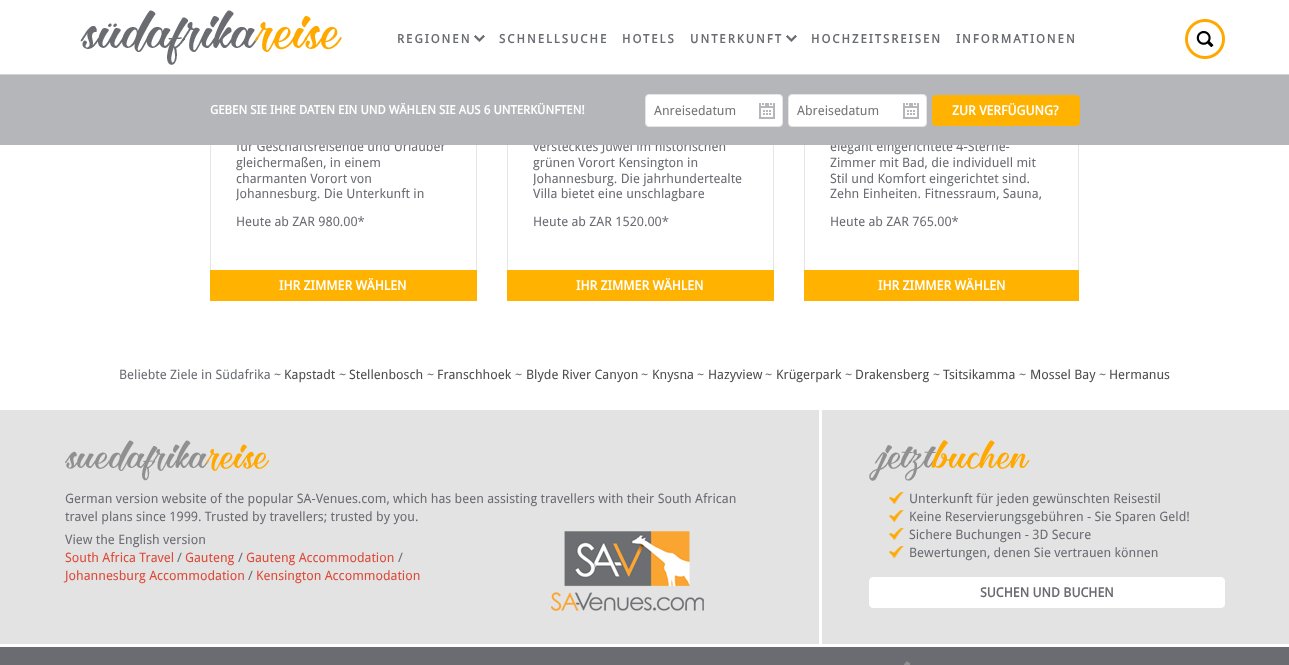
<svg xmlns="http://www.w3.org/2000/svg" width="1289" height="665">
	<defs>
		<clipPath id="clip1"><rect x="236" y="114" width="215" height="90" /></clipPath>
		<clipPath id="clip2"><rect x="533" y="114" width="215" height="90" /></clipPath>
	</defs>
	<rect width="100%" height="100%" fill="#FFFFFF" />
	<rect x="0" y="74" width="1289" height="1" fill="#D3D3D3" />
	<image x="80" y="10" width="262" height="55" href="assets/img1.png" />
	<text x="397" y="43" font-family="Droid Sans" font-size="12" font-weight="700" letter-spacing="2" fill="#6A6C72">REGIONEN</text>
	<image x="474" y="35" width="11" height="7" href="assets/img2.png" />
	<g font-family="Droid Sans" font-size="12" font-weight="700" letter-spacing="2" fill="#6A6C72">
		<text x="499" y="43">SCHNELLSUCHE</text>
		<text x="622" y="43">HOTELS</text>
		<text x="690" y="43">UNTERKUNFT</text>
	</g>
	<image x="786" y="35" width="11" height="7" href="assets/img2.png" />
	<g font-family="Droid Sans" font-size="12" font-weight="700" letter-spacing="2" fill="#6A6C72">
		<text x="811" y="43">HOCHZEITSREISEN</text>
		<text x="956" y="43">INFORMATIONEN</text>
	</g>
	<image x="1185" y="19" width="40" height="40" href="assets/img3.png" />
	<g font-family="Droid Sans" font-size="13" fill="#6A6C72">
		<text x="236" y="151">für Geschäftsreisende und Urlauber</text>
		<text x="533" y="151">verstecktes Juwel im historischen</text>
		<text x="830" y="151">elegant eingerichtete 4-Sterne-</text>
	</g>
	<rect x="0" y="75" width="1289" height="70" fill="#B5B6B9" />
	<text x="210" y="114" font-family="Droid Sans" font-size="12" font-weight="700" fill="#FFFFFF">GEBEN SIE IHRE DATEN EIN UND WÄHLEN SIE AUS 6 UNTERKÜNFTEN!</text>
	<rect x="645.5" y="94.5" width="137" height="32" rx="3.5" fill="#FFFFFF" stroke="#E5E5E5" />
	<text x="654" y="115" font-family="Droid Sans" font-size="13" fill="#757575">Anreisedatum</text>
	<image x="759" y="103" width="16" height="16" href="assets/img4.png" />
	<rect x="788.5" y="94.5" width="138" height="32" rx="3.5" fill="#FFFFFF" stroke="#E5E5E5" />
	<text x="797" y="115" font-family="Droid Sans" font-size="13" fill="#757575">Abreisedatum</text>
	<image x="903" y="103" width="16" height="16" href="assets/img4.png" />
	<rect x="932.5" y="95.5" width="147" height="30" rx="3.5" fill="#FFB200" stroke="#FFB200" />
	<text x="952" y="115" font-family="Droid Sans" font-size="13" font-weight="700" fill="#FFFFFF">ZUR VERFÜGUNG?</text>
	<rect x="476" y="145" width="1" height="125" fill="#E5E5E5" />
	<rect x="210" y="145" width="1" height="125" fill="#E5E5E5" />
	<g font-family="Droid Sans" font-size="13" fill="#6A6C72">
		<text x="236" y="167">gleichermaßen, in einem</text>
		<text x="236" y="183">charmanten Vorort von</text>
	</g>
	<g clip-path="url(#clip1)">
		<text x="236" y="198" font-family="Droid Sans" font-size="13" fill="#6A6C72">Johannesburg. Die Unterkunft in</text>
	</g>
	<text x="236" y="226" font-family="Droid Sans" font-size="13" fill="#6A6C72">Heute ab ZAR 980.00*</text>
	<rect x="210" y="270" width="267" height="31" fill="#FFB200" />
	<text x="279" y="290" font-family="Droid Sans" font-size="13" font-weight="700" fill="#FFFFFF">IHR ZIMMER WÄHLEN</text>
	<rect x="773" y="145" width="1" height="125" fill="#E5E5E5" />
	<rect x="507" y="145" width="1" height="125" fill="#E5E5E5" />
	<text x="533" y="167" font-family="Droid Sans" font-size="13" fill="#6A6C72">grünen Vorort Kensington in</text>
	<g clip-path="url(#clip2)">
		<text x="533" y="183" font-family="Droid Sans" font-size="13" fill="#6A6C72">Johannesburg. Die jahrhundertealte</text>
	</g>
	<g font-family="Droid Sans" font-size="13" fill="#6A6C72">
		<text x="533" y="198">Villa bietet eine unschlagbare</text>
		<text x="533" y="226">Heute ab ZAR 1520.00*</text>
	</g>
	<rect x="507" y="270" width="267" height="31" fill="#FFB200" />
	<text x="576" y="290" font-family="Droid Sans" font-size="13" font-weight="700" fill="#FFFFFF">IHR ZIMMER WÄHLEN</text>
	<rect x="1078" y="145" width="1" height="125" fill="#E5E5E5" />
	<rect x="804" y="145" width="1" height="125" fill="#E5E5E5" />
	<g font-family="Droid Sans" font-size="13" fill="#6A6C72">
		<text x="830" y="167">Zimmer mit Bad, die individuell mit</text>
		<text x="830" y="183">Stil und Komfort eingerichtet sind.</text>
		<text x="830" y="198">Zehn Einheiten. Fitnessraum, Sauna,</text>
		<text x="830" y="226">Heute ab ZAR 765.00*</text>
	</g>
	<rect x="804" y="270" width="275" height="31" fill="#FFB200" />
	<text x="878" y="290" font-family="Droid Sans" font-size="13" font-weight="700" fill="#FFFFFF">IHR ZIMMER WÄHLEN</text>
	<text x="119" y="379" font-family="Droid Sans" font-size="13" fill="#6A6C72">Beliebte Ziele in Südafrika ~</text>
	<text x="284" y="379" font-family="Droid Sans" font-size="13" fill="#4C4C4C">Kapstadt</text>
	<text x="339" y="379" font-family="Droid Sans" font-size="13" fill="#6A6C72">~</text>
	<text x="349" y="379" font-family="Droid Sans" font-size="13" fill="#4C4C4C">Stellenbosch</text>
	<text x="427" y="379" font-family="Droid Sans" font-size="13" fill="#6A6C72">~</text>
	<text x="437" y="379" font-family="Droid Sans" font-size="13" fill="#4C4C4C">Franschhoek</text>
	<text x="515" y="379" font-family="Droid Sans" font-size="13" fill="#6A6C72">~</text>
	<text x="526" y="379" font-family="Droid Sans" font-size="13" fill="#4C4C4C">Blyde River Canyon</text>
	<text x="641" y="379" font-family="Droid Sans" font-size="13" fill="#6A6C72">~</text>
	<text x="652" y="379" font-family="Droid Sans" font-size="13" fill="#4C4C4C">Knysna</text>
	<text x="697" y="379" font-family="Droid Sans" font-size="13" fill="#6A6C72">~</text>
	<text x="708" y="379" font-family="Droid Sans" font-size="13" fill="#4C4C4C">Hazyview</text>
	<text x="765" y="379" font-family="Droid Sans" font-size="13" fill="#6A6C72">~</text>
	<text x="776" y="379" font-family="Droid Sans" font-size="13" fill="#4C4C4C">Krügerpark</text>
	<text x="845" y="379" font-family="Droid Sans" font-size="13" fill="#6A6C72">~</text>
	<text x="855" y="379" font-family="Droid Sans" font-size="13" fill="#4C4C4C">Drakensberg</text>
	<text x="933" y="379" font-family="Droid Sans" font-size="13" fill="#6A6C72">~</text>
	<text x="943" y="379" font-family="Droid Sans" font-size="13" fill="#4C4C4C">Tsitsikamma</text>
	<text x="1019" y="379" font-family="Droid Sans" font-size="13" fill="#6A6C72">~</text>
	<text x="1030" y="379" font-family="Droid Sans" font-size="13" fill="#4C4C4C">Mossel Bay</text>
	<text x="1099" y="379" font-family="Droid Sans" font-size="13" fill="#6A6C72">~</text>
	<text x="1109" y="379" font-family="Droid Sans" font-size="13" fill="#4C4C4C">Hermanus</text>
	<rect x="0" y="410" width="1289" height="234" fill="#E3E3E3" />
	<image x="65" y="440" width="205" height="41" href="assets/img5.png" />
	<g font-family="Droid Sans" font-size="13" fill="#6A6C72">
		<text x="65" y="503">German version website of the popular SA-Venues.com, which has been assisting travellers with their South African</text>
		<text x="65" y="521">travel plans since 1999. Trusted by travellers; trusted by you.</text>
		<text x="65" y="544">View the English version</text>
	</g>
	<image x="551" y="531" width="153" height="80" href="assets/img6.png" />
	<text x="65" y="562" font-family="Droid Sans" font-size="13" fill="#DD4A38">South Africa Travel</text>
	<text x="177" y="562" font-family="Droid Sans" font-size="13" fill="#6A6C72">/</text>
	<text x="185" y="562" font-family="Droid Sans" font-size="13" fill="#DD4A38">Gauteng</text>
	<text x="238" y="562" font-family="Droid Sans" font-size="13" fill="#6A6C72">/</text>
	<text x="246" y="562" font-family="Droid Sans" font-size="13" fill="#DD4A38">Gauteng Accommodation</text>
	<text x="398" y="562" font-family="Droid Sans" font-size="13" fill="#6A6C72">/</text>
	<text x="65" y="580" font-family="Droid Sans" font-size="13" fill="#DD4A38">Johannesburg Accommodation</text>
	<text x="248" y="580" font-family="Droid Sans" font-size="13" fill="#6A6C72">/</text>
	<text x="256" y="580" font-family="Droid Sans" font-size="13" fill="#DD4A38">Kensington Accommodation</text>
	<rect x="819" y="410" width="3" height="234" fill="#FFFFFF" />
	<image x="869" y="440" width="161" height="41" href="assets/img7.png" />
	<image x="889" y="492" width="15" height="12" href="assets/img8.png" />
	<text x="909" y="503" font-family="Droid Sans" font-size="13" fill="#6A6C72">Unterkunft für jeden gewünschten Reisestil</text>
	<image x="889" y="510" width="15" height="12" href="assets/img8.png" />
	<text x="909" y="521" font-family="Droid Sans" font-size="13" fill="#6A6C72">Keine Reservierungsgebühren - Sie Sparen Geld!</text>
	<image x="889" y="528" width="15" height="12" href="assets/img8.png" />
	<text x="909" y="539" font-family="Droid Sans" font-size="13" fill="#6A6C72">Sichere Buchungen - 3D Secure</text>
	<image x="889" y="546" width="15" height="12" href="assets/img8.png" />
	<text x="909" y="557" font-family="Droid Sans" font-size="13" fill="#6A6C72">Bewertungen, denen Sie vertrauen können</text>
	<rect x="869.5" y="577.5" width="355" height="30" rx="3.5" fill="#FFFFFF" stroke="#FFFFFF" />
	<text x="980" y="597" font-family="Droid Sans" font-size="13" font-weight="700" fill="#6A6C72">SUCHEN UND BUCHEN</text>
	<rect x="0" y="647" width="1289" height="18" fill="#6A6C72" />
	<image x="904" y="661" width="7" height="4" href="assets/img9.png" />
</svg>
